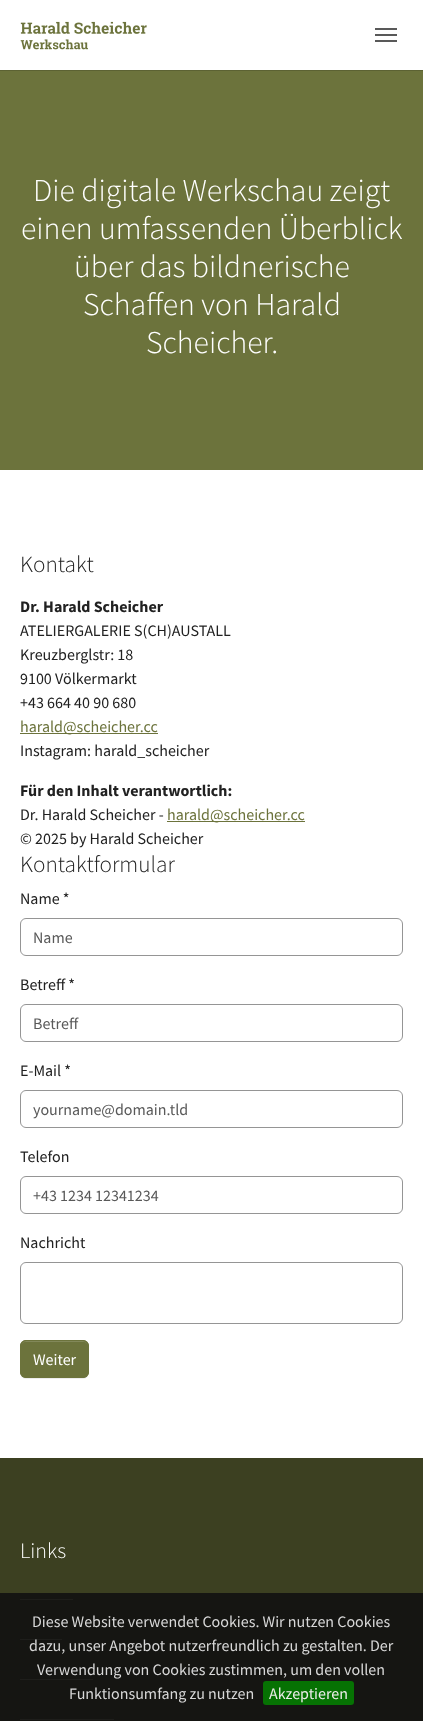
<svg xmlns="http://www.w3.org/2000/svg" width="423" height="1721">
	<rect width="100%" height="100%" fill="#FFFFFF" />
	<rect x="0" y="70" width="423" height="1" fill="#5C6233" />
	<image x="20" y="21" width="127" height="29" href="assets/img1.png" />
	<rect x="375" y="34" width="22" height="2" fill="#595959" />
	<rect x="375" y="28" width="22" height="2" fill="#595959" />
	<rect x="375" y="40" width="22" height="2" fill="#595959" />
	<rect x="0" y="71" width="423" height="399" fill="#6C733C" />
	<g font-family="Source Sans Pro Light" font-size="31.75" font-weight="300" fill="#FFFFFF">
		<text x="33" y="201">Die digitale Werkschau zeigt</text>
		<text x="21" y="239">einen umfassenden Überblick</text>
		<text x="74" y="277">über das bildnerische</text>
		<text x="83" y="315">Schaffen von Harald</text>
		<text x="146" y="353">Scheicher.</text>
	</g>
	<text x="20" y="572" font-family="Source Sans Pro Light" font-size="23.25" font-weight="300" fill="#212121">Kontakt</text>
	<text x="20" y="612" font-family="Source Sans Pro" font-size="16" font-weight="700" fill="#212121">Dr. Harald Scheicher</text>
	<g font-family="Source Sans Pro" font-size="16" fill="#212121">
		<text x="20" y="636">ATELIERGALERIE S(CH)AUSTALL</text>
		<text x="20" y="660">Kreuzberglstr: 18</text>
		<text x="20" y="684">9100 Völkermarkt</text>
		<text x="20" y="708">+43 664 40 90 680</text>
	</g>
	<rect x="20" y="733" width="138" height="1" fill="#6C733C" />
	<text x="20" y="732" font-family="Source Sans Pro" font-size="16" fill="#6C733C">harald@scheicher.cc</text>
	<text x="20" y="756" font-family="Source Sans Pro" font-size="16" fill="#212121">Instagram: harald_scheicher</text>
	<text x="20" y="796" font-family="Source Sans Pro" font-size="16" font-weight="700" fill="#212121">Für den Inhalt verantwortlich:</text>
	<text x="20" y="820" font-family="Source Sans Pro" font-size="16" fill="#212121">Dr. Harald Scheicher -</text>
	<rect x="167" y="821" width="138" height="1" fill="#6C733C" />
	<text x="167" y="820" font-family="Source Sans Pro" font-size="16" fill="#6C733C">harald@scheicher.cc</text>
	<text x="20" y="844" font-family="Source Sans Pro" font-size="16" fill="#212121">© 2025 by Harald Scheicher</text>
	<text x="20" y="872" font-family="Source Sans Pro Light" font-size="23.25" font-weight="300" fill="#212121">Kontaktformular</text>
	<text x="20" y="904" font-family="Source Sans Pro" font-size="16" fill="#212121">Name *</text>
	<rect x="20.5" y="918.5" width="382" height="37" rx="5.5" fill="none" stroke="#959595" />
	<text x="33" y="943" font-family="Source Sans Pro" font-size="16" fill="#595959">Name</text>
	<text x="20" y="990" font-family="Source Sans Pro" font-size="16" fill="#212121">Betreff *</text>
	<rect x="20.5" y="1004.5" width="382" height="37" rx="5.5" fill="none" stroke="#959595" />
	<text x="33" y="1029" font-family="Source Sans Pro" font-size="16" fill="#595959">Betreff</text>
	<text x="20" y="1076" font-family="Source Sans Pro" font-size="16" fill="#212121">E-Mail *</text>
	<rect x="20.5" y="1090.5" width="382" height="37" rx="5.5" fill="none" stroke="#959595" />
	<text x="33" y="1115" font-family="Source Sans Pro" font-size="16" fill="#595959">yourname@domain.tld</text>
	<text x="20" y="1162" font-family="Source Sans Pro" font-size="16" fill="#212121">Telefon</text>
	<rect x="20.5" y="1176.5" width="382" height="37" rx="5.5" fill="none" stroke="#959595" />
	<text x="33" y="1201" font-family="Source Sans Pro" font-size="16" fill="#595959">+43 1234 12341234</text>
	<text x="20" y="1248" font-family="Source Sans Pro" font-size="16" fill="#212121">Nachricht</text>
	<rect x="20.5" y="1262.5" width="382" height="61" rx="5.5" fill="none" stroke="#959595" />
	<rect x="20" y="1341" width="69" height="38" rx="6" fill="#000000" fill-opacity="0.07" filter="blur(0.5px)" />
	<rect x="20" y="1340" width="69" height="38" rx="6" fill="#6C733C" />
	<path d="M26 1342H83C86 1342 88 1344 88 1347C88 1339 79 1341 74 1341H36C30 1341 21 1339 21 1347C21 1344 23 1342 26 1342Z" fill="#828859" />
	<rect x="20.5" y="1340.5" width="68" height="37" rx="5.5" fill="none" stroke="#6C733C" />
	<text x="33" y="1365" font-family="Source Sans Pro" font-size="16" fill="#FFFFFF">Weiter</text>
	<rect x="0" y="1458" width="423" height="263" fill="#3C4021" />
	<text x="20" y="1558" font-family="Source Sans Pro Light" font-size="22" font-weight="300" fill="#FFFFFF">Links</text>
	<rect x="20" y="1599" width="53" height="1" fill="#989D78" />
	<rect x="20" y="1639" width="42" height="1" fill="#989D78" />
	<rect x="20" y="1679" width="73" height="1" fill="#989D78" />
	<rect x="20" y="1719" width="94" height="1" fill="#989D78" />
	<rect x="0" y="1593" width="423" height="128" fill="#111111" fill-opacity="0.9" />
	<g font-family="Source Sans Pro" font-size="16" fill="#D8D8D8">
		<text x="32" y="1627">Diese Website verwendet Cookies. Wir nutzen Cookies</text>
		<text x="29" y="1651">dazu, unser Angebot nutzerfreundlich zu gestalten. Der</text>
		<text x="37" y="1675">Verwendung von Cookies zustimmen, um den vollen</text>
		<text x="69" y="1699">Funktionsumfang zu nutzen</text>
	</g>
	<rect x="263" y="1681" width="91" height="24" rx="3" fill="#067203" />
	<text x="269" y="1699" font-family="Source Sans Pro" font-size="16" fill="#ECECE9">Akzeptieren</text>
</svg>
